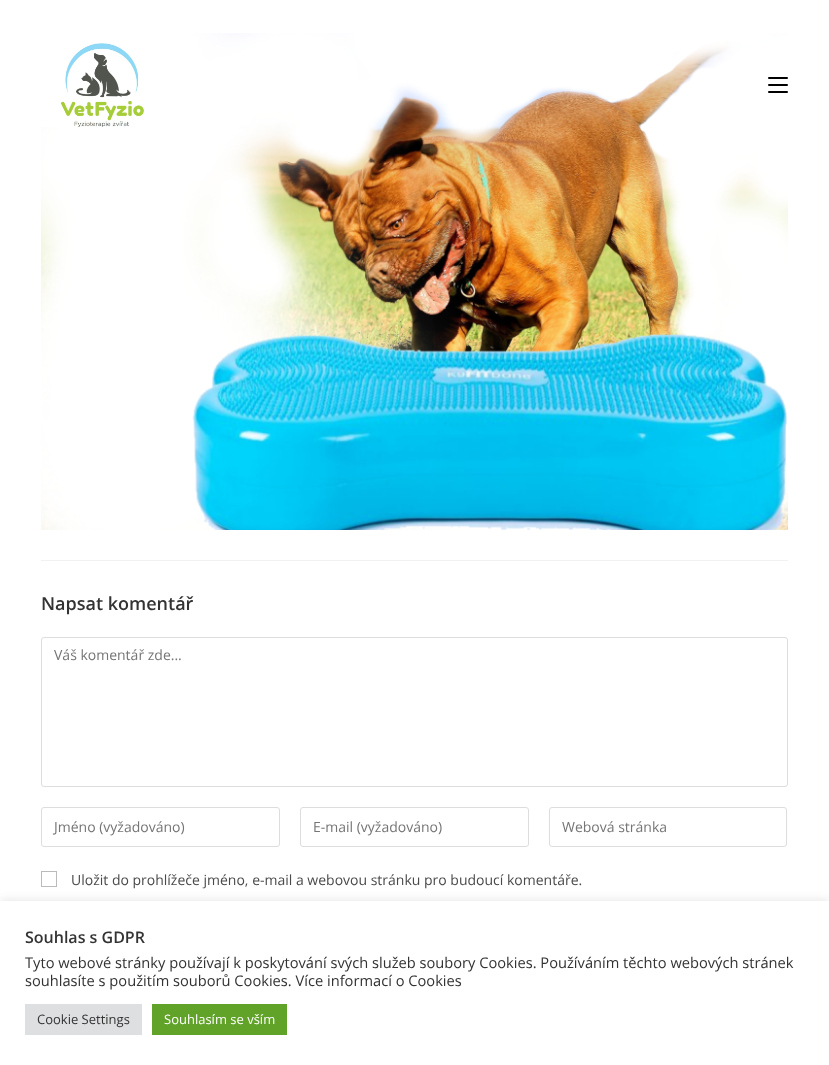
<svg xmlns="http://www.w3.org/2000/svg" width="829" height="1065">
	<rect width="100%" height="100%" fill="#FFFFFF" />
	<image x="41" y="33" width="747" height="497" href="assets/img2.png" />
	<image x="41" y="33" width="103" height="94" href="assets/img1.png" />
	<rect x="768" y="91" width="20" height="2" rx="1" fill="#000000" />
	<rect x="768" y="77" width="20" height="2" rx="1" fill="#000000" />
	<rect x="768" y="84" width="20" height="2" rx="1" fill="#000000" />
	<rect x="41" y="560" width="747" height="1" fill="#F1F1F1" />
	<text x="41" y="610" font-family="Open Sans" font-size="18" font-weight="600" fill="#333333">Napsat komentář</text>
	<rect x="41.5" y="637.5" width="746" height="149" rx="2.5" fill="none" stroke="#DDDDDD" />
	<text x="54" y="660" font-family="Open Sans" font-size="14" fill="#757575">Váš komentář zde...</text>
	<rect x="41.5" y="807.5" width="238" height="39" rx="2.5" fill="none" stroke="#DDDDDD" />
	<text x="54" y="832" font-family="Open Sans" font-size="14" fill="#757575">Jméno (vyžadováno)</text>
	<rect x="300.5" y="807.5" width="228" height="39" rx="2.5" fill="none" stroke="#DDDDDD" />
	<text x="313" y="832" font-family="Open Sans" font-size="14" fill="#757575">E-mail (vyžadováno)</text>
	<rect x="549.5" y="807.5" width="237" height="39" rx="2.5" fill="none" stroke="#DDDDDD" />
	<text x="562" y="832" font-family="Open Sans" font-size="14" fill="#757575">Webová stránka</text>
	<rect x="41.5" y="871.5" width="15" height="15" fill="none" stroke="#BBBBBB" />
	<text x="71" y="885" font-family="Open Sans" font-size="14" fill="#4A4A4A">Uložit do prohlížeče jméno, e-mail a webovou stránku pro budoucí komentáře.</text>
	<rect x="0" y="900" width="829" height="164" fill="#ACABAB" fill-opacity="0.3" filter="blur(5px)" />
	<rect x="0" y="901" width="829" height="164" fill="#FFFFFF" />
	<text x="25" y="943" font-family="Open Sans" font-size="16" font-weight="600" fill="#333333">Souhlas s GDPR</text>
	<g font-family="Open Sans" font-size="14.67" fill="#333333">
		<text x="25" y="968">Tyto webové stránky používají k poskytování svých služeb soubory Cookies. Používáním těchto webových stránek</text>
		<text x="25" y="986">souhlasíte s použitím souborů Cookies. Více informací o Cookies</text>
	</g>
	<rect x="25" y="1004" width="117" height="31" fill="#DEDFE0" />
	<text x="37" y="1024" font-family="Open Sans" font-size="13" fill="#333333">Cookie Settings</text>
	<rect x="152" y="1004" width="135" height="31" fill="#61A229" />
	<text x="164" y="1024" font-family="Open Sans" font-size="13" fill="#FFFFFF">Souhlasím se vším</text>
</svg>
